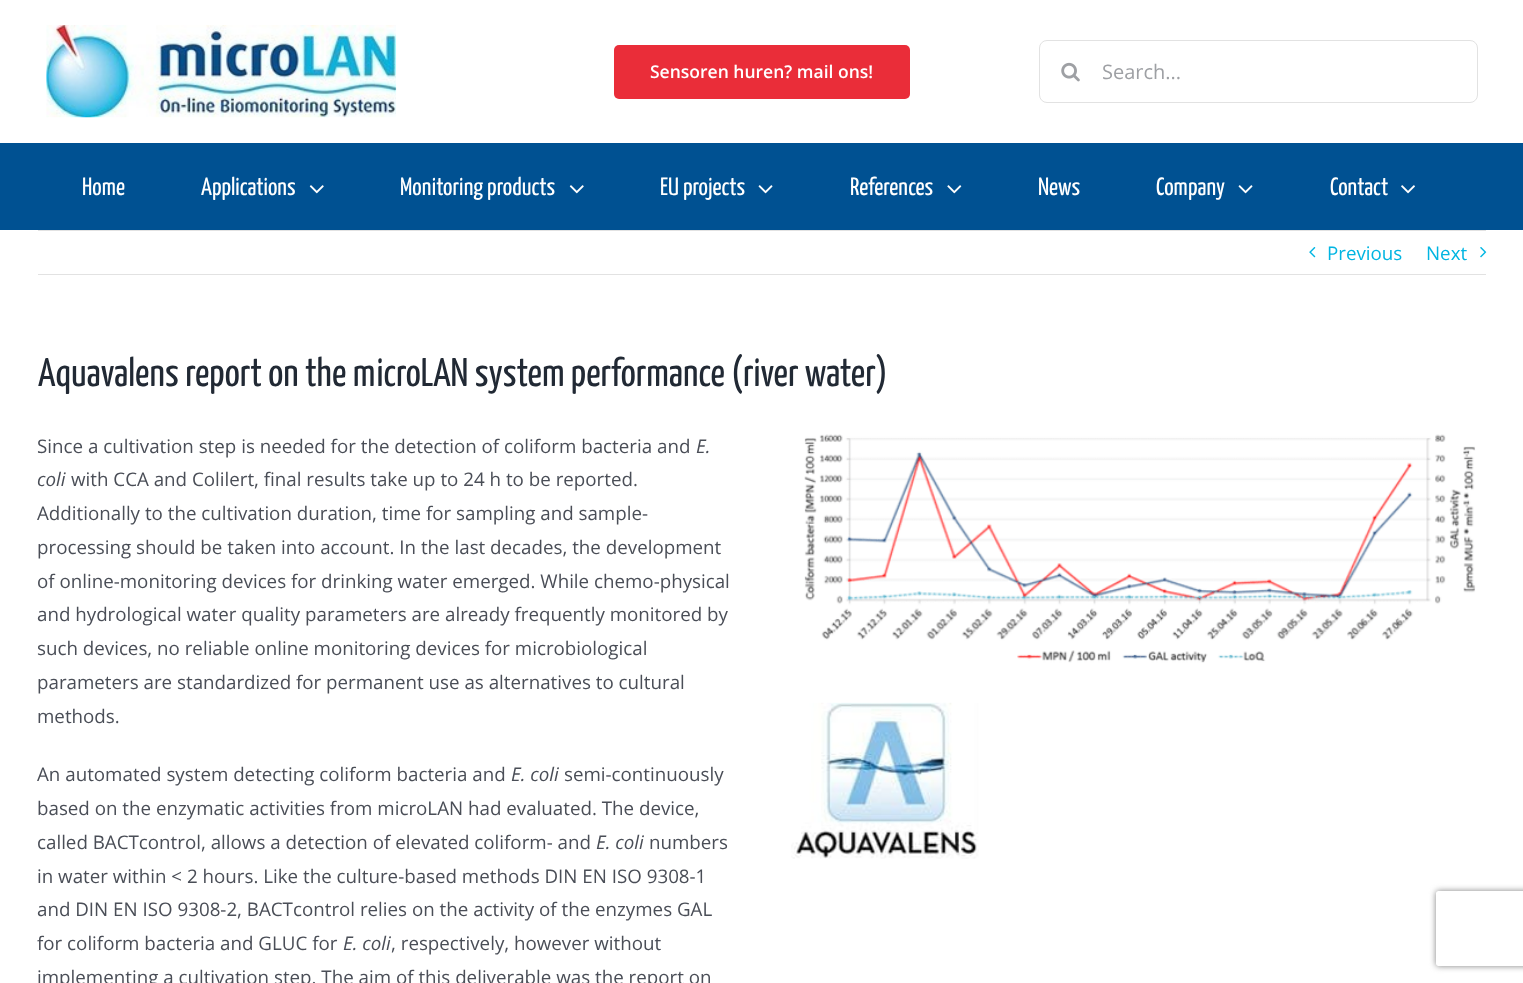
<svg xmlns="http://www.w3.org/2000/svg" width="1523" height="983">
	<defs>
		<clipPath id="clip1"><path d="M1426 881H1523V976H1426ZM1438.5 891H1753.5C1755 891 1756 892 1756 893.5V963.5C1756 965 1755 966 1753.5 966H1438.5C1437 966 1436 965 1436 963.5V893.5C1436 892 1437 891 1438.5 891Z" clip-rule="evenodd" /></clipPath>
	</defs>
	<rect width="100%" height="100%" fill="#FFFFFF" />
	<image x="46" y="25" width="351" height="93" href="assets/img1.png" />
	<rect x="614" y="45" width="296" height="54" rx="5" fill="#EA2D39" />
	<text x="650" y="78" font-family="Open Sans" font-size="17.5" font-weight="600" fill="#FFFFFF">Sensoren huren? mail ons!</text>
	<rect x="1039.5" y="40.5" width="438" height="62" rx="7.5" fill="none" stroke="#E2E2E2" />
	<image x="1061" y="62" width="19" height="20" href="assets/img2.png" />
	<text x="1102" y="79" font-family="Open Sans" font-size="20" fill="#9EA0A4">Search...</text>
	<rect x="0" y="143" width="1523" height="87" fill="#005192" />
	<g font-family="Yanone Kaffeesatz" font-size="25" font-weight="200" fill="#FFFFFF">
		<text x="82" y="195">Home</text>
		<text x="201" y="195">Applications</text>
	</g>
	<image x="309" y="185" width="15" height="9" href="assets/img3.png" />
	<text x="400" y="195" font-family="Yanone Kaffeesatz" font-size="25" font-weight="200" fill="#FFFFFF">Monitoring products</text>
	<image x="569" y="185" width="15" height="9" href="assets/img3.png" />
	<text x="660" y="195" font-family="Yanone Kaffeesatz" font-size="25" font-weight="200" fill="#FFFFFF">EU projects</text>
	<image x="758" y="185" width="15" height="9" href="assets/img4.png" />
	<text x="850" y="195" font-family="Yanone Kaffeesatz" font-size="25" font-weight="200" fill="#FFFFFF">References</text>
	<image x="947" y="185" width="15" height="9" href="assets/img5.png" />
	<g font-family="Yanone Kaffeesatz" font-size="25" font-weight="200" fill="#FFFFFF">
		<text x="1038" y="195">News</text>
		<text x="1156" y="195">Company</text>
	</g>
	<image x="1238" y="185" width="15" height="9" href="assets/img4.png" />
	<text x="1330" y="195" font-family="Yanone Kaffeesatz" font-size="25" font-weight="200" fill="#FFFFFF">Contact</text>
	<image x="1401" y="185" width="14" height="9" href="assets/img6.png" />
	<rect x="38" y="230" width="1448" height="1" fill="#E2E2E2" />
	<rect x="38" y="274" width="1448" height="1" fill="#E2E2E2" />
	<image x="1309" y="247" width="7" height="11" href="assets/img7.png" />
	<g font-family="Open Sans" font-size="18.75" fill="#01B5E2">
		<text x="1327" y="260">Previous</text>
		<text x="1426" y="260">Next</text>
	</g>
	<image x="1480" y="247" width="7" height="11" href="assets/img8.png" />
	<text x="38" y="386" font-family="Yanone Kaffeesatz" font-size="40" font-weight="200" fill="#212934">Aquavalens report on the microLAN system performance (river water)</text>
	<text x="37" y="453" font-family="Open Sans" font-size="18.75" fill="#4A4E57">Since a cultivation step is needed for the detection of coliform bacteria and</text>
	<g font-family="Open Sans" font-size="18.75" font-style="italic" fill="#4A4E57">
		<text x="696" y="453">E.</text>
		<text x="37" y="486">coli</text>
	</g>
	<g font-family="Open Sans" font-size="18.75" fill="#4A4E57">
		<text x="71" y="486">with CCA and Colilert, final results take up to 24 h to be reported.</text>
		<text x="37" y="520">Additionally to the cultivation duration, time for sampling and sample-</text>
		<text x="37" y="554">processing should be taken into account. In the last decades, the development</text>
		<text x="37" y="588">of online-monitoring devices for drinking water emerged. While chemo-physical</text>
		<text x="37" y="621">and hydrological water quality parameters are already frequently monitored by</text>
		<text x="37" y="655">such devices, no reliable online monitoring devices for microbiological</text>
		<text x="37" y="689">parameters are standardized for permanent use as alternatives to cultural</text>
		<text x="37" y="723">methods.</text>
		<text x="37" y="781">An automated system detecting coliform bacteria and</text>
	</g>
	<text x="511" y="781" font-family="Open Sans" font-size="18.75" font-style="italic" fill="#4A4E57">E. coli</text>
	<g font-family="Open Sans" font-size="18.75" fill="#4A4E57">
		<text x="564" y="781">semi-continuously</text>
		<text x="37" y="815">based on the enzymatic activities from microLAN had evaluated. The device,</text>
		<text x="37" y="849">called BACTcontrol, allows a detection of elevated coliform- and</text>
	</g>
	<text x="596" y="849" font-family="Open Sans" font-size="18.75" font-style="italic" fill="#4A4E57">E. coli</text>
	<g font-family="Open Sans" font-size="18.75" fill="#4A4E57">
		<text x="649" y="849">numbers</text>
		<text x="37" y="883">in water within &lt; 2 hours. Like the culture-based methods DIN EN ISO 9308-1</text>
		<text x="37" y="916">and DIN EN ISO 9308-2, BACTcontrol relies on the activity of the enzymes GAL</text>
		<text x="37" y="950">for coliform bacteria and GLUC for</text>
	</g>
	<text x="343" y="950" font-family="Open Sans" font-size="18.75" font-style="italic" fill="#4A4E57">E. coli</text>
	<g font-family="Open Sans" font-size="18.75" fill="#4A4E57">
		<text x="391" y="950">, respectively, however without</text>
		<text x="37" y="984">implementing a cultivation step. The aim of this deliverable was the report on</text>
	</g>
	<image x="804" y="434" width="672" height="229" href="assets/img9.png" />
	<image x="791" y="702" width="188" height="157" href="assets/img10.png" />
	<g clip-path="url(#clip1)">
		<rect x="1436" y="891" width="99" height="75" rx="2.5" fill="#808080" filter="blur(3px)" />
	</g>
</svg>
